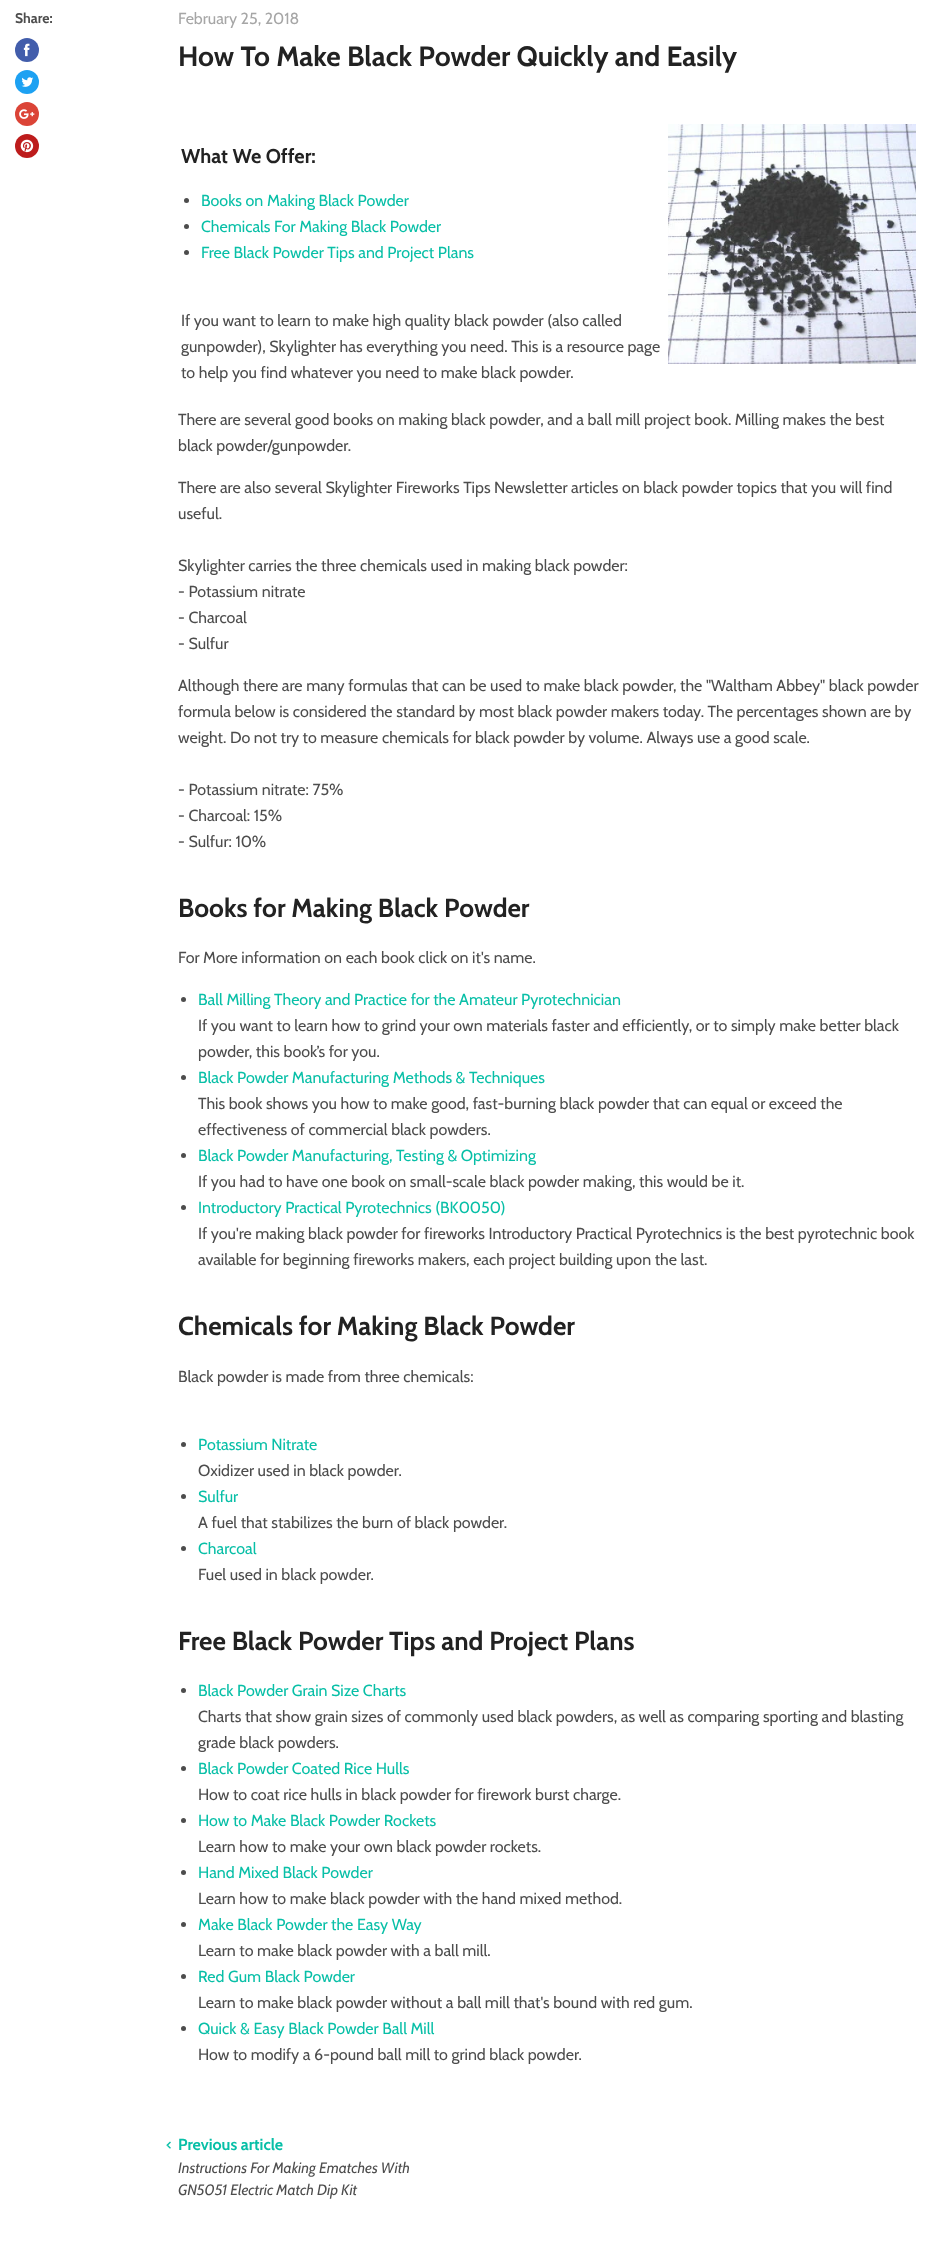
<svg xmlns="http://www.w3.org/2000/svg" width="934" height="2247">
	<rect width="100%" height="100%" fill="#FFFFFF" />
	<text x="15" y="23" font-family="Cabin" font-size="14" font-weight="700" fill="#4D4D4D">Share:</text>
	<circle cx="27" cy="50" r="12" fill="#425DAB" />
	<image x="23" y="43" width="7" height="14" href="assets/img1.png" />
	<circle cx="27" cy="82" r="12" fill="#1DA1F2" />
	<image x="21" y="77" width="13" height="10" href="assets/img2.png" />
	<circle cx="27" cy="114" r="12" fill="#DB4437" />
	<image x="19" y="109" width="16" height="10" href="assets/img3.png" />
	<circle cx="27" cy="146" r="12" fill="#BD1C1C" />
	<image x="20" y="139" width="14" height="14" href="assets/img4.png" />
	<text x="178" y="24" font-family="Cabin" font-size="16" fill="#A6A6A6">February 25, 2018</text>
	<text x="178" y="66" font-family="Cabin" font-size="28" font-weight="700" fill="#222222">How To Make Black Powder Quickly and Easily</text>
	<text x="181" y="163" font-family="Cabin" font-size="20" font-weight="700" fill="#222222">What We Offer:</text>
	<circle cx="186.5" cy="200.5" r="2.5" fill="#4D4D4D" />
	<text x="201" y="206" font-family="Cabin" font-size="16" fill="#08BFA7">Books on Making Black Powder</text>
	<circle cx="186.5" cy="226.5" r="2.5" fill="#4D4D4D" />
	<text x="201" y="232" font-family="Cabin" font-size="16" fill="#08BFA7">Chemicals For Making Black Powder</text>
	<circle cx="186.5" cy="252.5" r="2.5" fill="#4D4D4D" />
	<text x="201" y="258" font-family="Cabin" font-size="16" fill="#08BFA7">Free Black Powder Tips and Project Plans</text>
	<g font-family="Cabin" font-size="16" fill="#4D4D4D">
		<text x="181" y="326">If you want to learn to make high quality black powder (also called</text>
		<text x="181" y="352">gunpowder), Skylighter has everything you need. This is a resource page</text>
		<text x="181" y="378">to help you find whatever you need to make black powder.</text>
	</g>
	<image x="668" y="124" width="248" height="240" href="assets/img5.png" />
	<g font-family="Cabin" font-size="16" fill="#4D4D4D">
		<text x="178" y="425">There are several good books on making black powder, and a ball mill project book. Milling makes the best</text>
		<text x="178" y="451">black powder/gunpowder.</text>
		<text x="178" y="493">There are also several Skylighter Fireworks Tips Newsletter articles on black powder topics that you will find</text>
		<text x="178" y="519">useful.</text>
		<text x="178" y="571">Skylighter carries the three chemicals used in making black powder:</text>
		<text x="178" y="597">- Potassium nitrate</text>
		<text x="178" y="623">- Charcoal</text>
		<text x="178" y="649">- Sulfur</text>
		<text x="178" y="691">Although there are many formulas that can be used to make black powder, the "Waltham Abbey" black powder</text>
		<text x="178" y="717">formula below is considered the standard by most black powder makers today. The percentages shown are by</text>
		<text x="178" y="743">weight. Do not try to measure chemicals for black powder by volume. Always use a good scale.</text>
		<text x="178" y="795">- Potassium nitrate: 75%</text>
		<text x="178" y="821">- Charcoal: 15%</text>
		<text x="178" y="847">- Sulfur: 10%</text>
	</g>
	<text x="178" y="917" font-family="Cabin" font-size="26" font-weight="700" fill="#222222">Books for Making Black Powder</text>
	<text x="178" y="963" font-family="Cabin" font-size="16" fill="#4D4D4D">For More information on each book click on it's name.</text>
	<circle cx="183.5" cy="999.5" r="2.5" fill="#4D4D4D" />
	<text x="198" y="1005" font-family="Cabin" font-size="16" fill="#08BFA7">Ball Milling Theory and Practice for the Amateur Pyrotechnician</text>
	<g font-family="Cabin" font-size="16" fill="#4D4D4D">
		<text x="198" y="1031">If you want to learn how to grind your own materials faster and efficiently, or to simply make better black</text>
		<text x="198" y="1057">powder, this book’s for you.</text>
	</g>
	<circle cx="183.5" cy="1077.5" r="2.5" fill="#4D4D4D" />
	<text x="198" y="1083" font-family="Cabin" font-size="16" fill="#08BFA7">Black Powder Manufacturing Methods &amp; Techniques</text>
	<g font-family="Cabin" font-size="16" fill="#4D4D4D">
		<text x="198" y="1109">This book shows you how to make good, fast-burning black powder that can equal or exceed the</text>
		<text x="198" y="1135">effectiveness of commercial black powders.</text>
	</g>
	<circle cx="183.5" cy="1155.5" r="2.5" fill="#4D4D4D" />
	<text x="198" y="1161" font-family="Cabin" font-size="16" fill="#08BFA7">Black Powder Manufacturing, Testing &amp; Optimizing</text>
	<text x="198" y="1187" font-family="Cabin" font-size="16" fill="#4D4D4D">If you had to have one book on small-scale black powder making, this would be it.</text>
	<circle cx="183.5" cy="1207.5" r="2.5" fill="#4D4D4D" />
	<text x="198" y="1213" font-family="Cabin" font-size="16" fill="#08BFA7">Introductory Practical Pyrotechnics (BK0050)</text>
	<g font-family="Cabin" font-size="16" fill="#4D4D4D">
		<text x="198" y="1239">If you're making black powder for fireworks Introductory Practical Pyrotechnics is the best pyrotechnic book</text>
		<text x="198" y="1265">available for beginning fireworks makers, each project building upon the last.</text>
	</g>
	<text x="178" y="1335" font-family="Cabin" font-size="26" font-weight="700" fill="#222222">Chemicals for Making Black Powder</text>
	<text x="178" y="1382" font-family="Cabin" font-size="16" fill="#4D4D4D">Black powder is made from three chemicals:</text>
	<circle cx="183.5" cy="1444.5" r="2.5" fill="#4D4D4D" />
	<text x="198" y="1450" font-family="Cabin" font-size="16" fill="#08BFA7">Potassium Nitrate</text>
	<text x="198" y="1476" font-family="Cabin" font-size="16" fill="#4D4D4D">Oxidizer used in black powder.</text>
	<circle cx="183.5" cy="1496.5" r="2.5" fill="#4D4D4D" />
	<text x="198" y="1502" font-family="Cabin" font-size="16" fill="#08BFA7">Sulfur</text>
	<text x="198" y="1528" font-family="Cabin" font-size="16" fill="#4D4D4D">A fuel that stabilizes the burn of black powder.</text>
	<circle cx="183.5" cy="1548.5" r="2.5" fill="#4D4D4D" />
	<text x="198" y="1554" font-family="Cabin" font-size="16" fill="#08BFA7">Charcoal</text>
	<text x="198" y="1580" font-family="Cabin" font-size="16" fill="#4D4D4D">Fuel used in black powder.</text>
	<text x="178" y="1650" font-family="Cabin" font-size="26" font-weight="700" fill="#222222">Free Black Powder Tips and Project Plans</text>
	<circle cx="183.5" cy="1690.5" r="2.5" fill="#4D4D4D" />
	<text x="198" y="1696" font-family="Cabin" font-size="16" fill="#08BFA7">Black Powder Grain Size Charts</text>
	<g font-family="Cabin" font-size="16" fill="#4D4D4D">
		<text x="198" y="1722">Charts that show grain sizes of commonly used black powders, as well as comparing sporting and blasting</text>
		<text x="198" y="1748">grade black powders.</text>
	</g>
	<circle cx="183.5" cy="1768.5" r="2.5" fill="#4D4D4D" />
	<text x="198" y="1774" font-family="Cabin" font-size="16" fill="#08BFA7">Black Powder Coated Rice Hulls</text>
	<text x="198" y="1800" font-family="Cabin" font-size="16" fill="#4D4D4D">How to coat rice hulls in black powder for firework burst charge.</text>
	<circle cx="183.5" cy="1820.5" r="2.5" fill="#4D4D4D" />
	<text x="198" y="1826" font-family="Cabin" font-size="16" fill="#08BFA7">How to Make Black Powder Rockets</text>
	<text x="198" y="1852" font-family="Cabin" font-size="16" fill="#4D4D4D">Learn how to make your own black powder rockets.</text>
	<circle cx="183.5" cy="1872.5" r="2.5" fill="#4D4D4D" />
	<text x="198" y="1878" font-family="Cabin" font-size="16" fill="#08BFA7">Hand Mixed Black Powder</text>
	<text x="198" y="1904" font-family="Cabin" font-size="16" fill="#4D4D4D">Learn how to make black powder with the hand mixed method.</text>
	<circle cx="183.5" cy="1924.5" r="2.5" fill="#4D4D4D" />
	<text x="198" y="1930" font-family="Cabin" font-size="16" fill="#08BFA7">Make Black Powder the Easy Way</text>
	<text x="198" y="1956" font-family="Cabin" font-size="16" fill="#4D4D4D">Learn to make black powder with a ball mill.</text>
	<circle cx="183.5" cy="1976.5" r="2.5" fill="#4D4D4D" />
	<text x="198" y="1982" font-family="Cabin" font-size="16" fill="#08BFA7">Red Gum Black Powder</text>
	<text x="198" y="2008" font-family="Cabin" font-size="16" fill="#4D4D4D">Learn to make black powder without a ball mill that's bound with red gum.</text>
	<circle cx="183.5" cy="2028.5" r="2.5" fill="#4D4D4D" />
	<text x="198" y="2034" font-family="Cabin" font-size="16" fill="#08BFA7">Quick &amp; Easy Black Powder Ball Mill</text>
	<text x="198" y="2060" font-family="Cabin" font-size="16" fill="#4D4D4D">How to modify a 6-pound ball mill to grind black powder.</text>
	<image x="166" y="2141" width="5" height="8" href="assets/img6.png" />
	<text x="178" y="2150" font-family="Cabin" font-size="16" font-weight="700" fill="#08BFA7">Previous article</text>
	<g font-family="Cabin" font-size="15" font-style="italic" fill="#4D4D4D">
		<text x="178" y="2173">Instructions For Making Ematches With</text>
		<text x="178" y="2195">GN5051 Electric Match Dip Kit</text>
	</g>
</svg>
